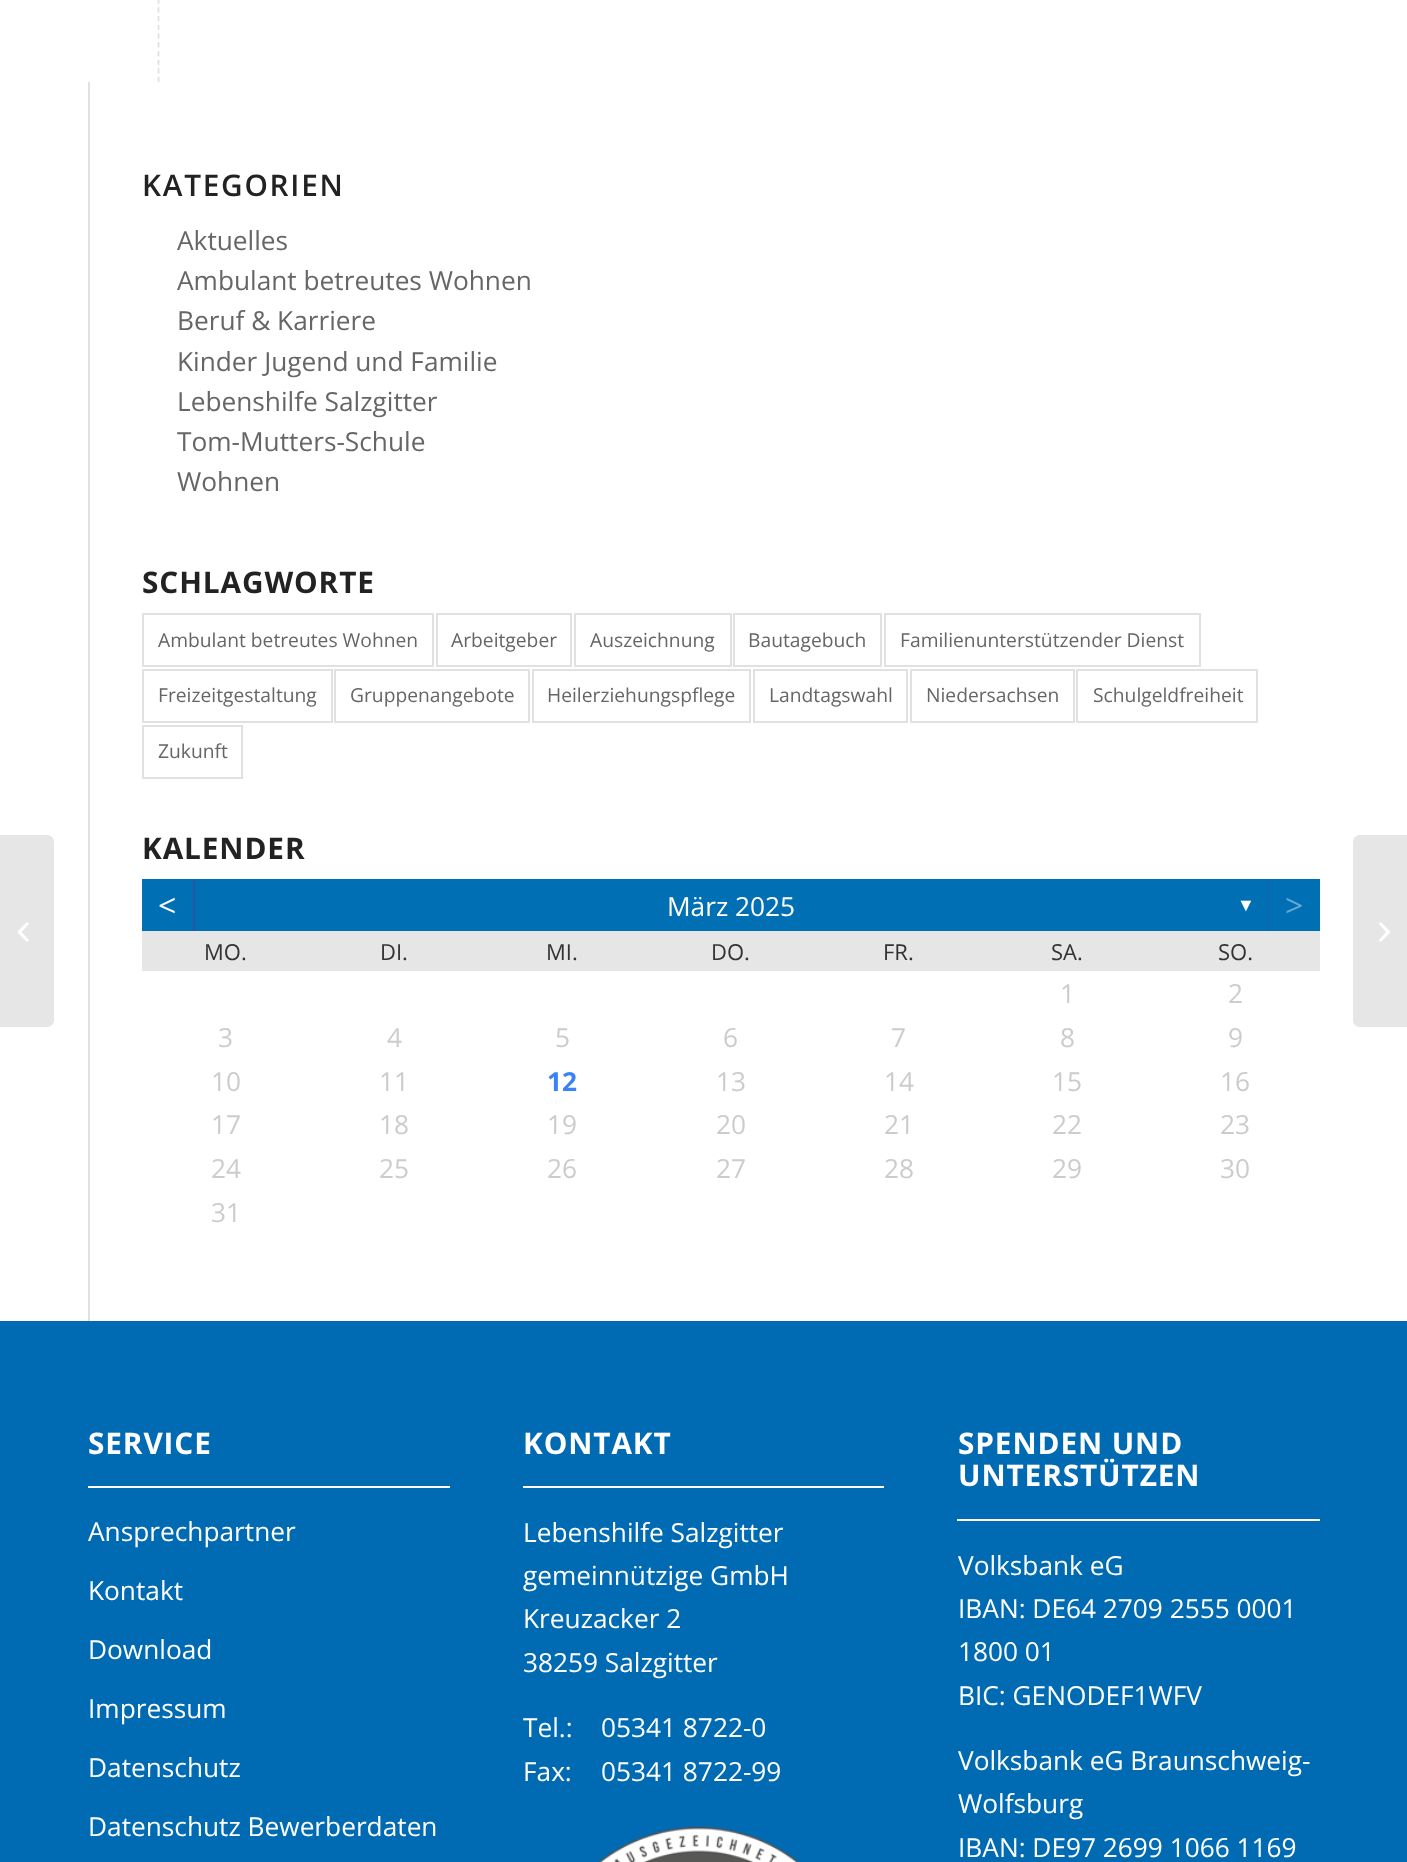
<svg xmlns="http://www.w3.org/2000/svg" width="1407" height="1862">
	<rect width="100%" height="100%" fill="#FFFFFF" />
	<path d="M0 835H47C51 835 54 838 54 842V1020C54 1024 51 1027 47 1027H0Z" fill="#E6E6E6" />
	<image x="17" y="922" width="12" height="20" href="assets/img1.png" />
	<path d="M158.5-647.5V82" fill="none" stroke="#E1E1E1" stroke-width="1.8" stroke-dasharray="5.25 3.48" />
	<rect x="88" y="82" width="2" height="1239" fill="#E1E1E1" />
	<text x="142" y="196" font-family="Open Sans" font-size="29.75" font-weight="600" letter-spacing="1.75" fill="#222222">KATEGORIEN</text>
	<g font-family="Open Sans" font-size="26.25" fill="#666666">
		<text x="177" y="250">Aktuelles</text>
		<text x="177" y="290">Ambulant betreutes Wohnen</text>
		<text x="177" y="330">Beruf &amp; Karriere</text>
		<text x="177" y="371">Kinder Jugend und Familie</text>
		<text x="177" y="411">Lebenshilfe Salzgitter</text>
		<text x="177" y="451">Tom-Mutters-Schule</text>
		<text x="177" y="491">Wohnen</text>
	</g>
	<text x="142" y="593" font-family="Open Sans" font-size="29.75" font-weight="700" letter-spacing="0.9" fill="#222222">SCHLAGWORTE</text>
	<rect x="143" y="614" width="290" height="52" fill="none" stroke="#E1E1E1" stroke-width="2" />
	<text x="158" y="647" font-family="Open Sans" font-size="19.25" fill="#666666">Ambulant betreutes Wohnen</text>
	<rect x="437" y="614" width="134" height="52" fill="none" stroke="#E1E1E1" stroke-width="2" />
	<text x="451" y="647" font-family="Open Sans" font-size="19.25" fill="#666666">Arbeitgeber</text>
	<rect x="575" y="614" width="156" height="52" fill="none" stroke="#E1E1E1" stroke-width="2" />
	<text x="590" y="647" font-family="Open Sans" font-size="19.25" fill="#666666">Auszeichnung</text>
	<rect x="734" y="614" width="147" height="52" fill="none" stroke="#E1E1E1" stroke-width="2" />
	<text x="748" y="647" font-family="Open Sans" font-size="19.25" fill="#666666">Bautagebuch</text>
	<rect x="885" y="614" width="315" height="52" fill="none" stroke="#E1E1E1" stroke-width="2" />
	<text x="900" y="647" font-family="Open Sans" font-size="19.25" fill="#666666">Familienunterstützender Dienst</text>
	<rect x="143" y="670" width="189" height="52" fill="none" stroke="#E1E1E1" stroke-width="2" />
	<text x="158" y="702" font-family="Open Sans" font-size="19.25" fill="#666666">Freizeitgestaltung</text>
	<rect x="335" y="670" width="194" height="52" fill="none" stroke="#E1E1E1" stroke-width="2" />
	<text x="350" y="702" font-family="Open Sans" font-size="19.25" fill="#666666">Gruppenangebote</text>
	<rect x="533" y="670" width="217" height="52" fill="none" stroke="#E1E1E1" stroke-width="2" />
	<text x="547" y="702" font-family="Open Sans" font-size="19.25" fill="#666666">Heilerziehungspflege</text>
	<rect x="754" y="670" width="153" height="52" fill="none" stroke="#E1E1E1" stroke-width="2" />
	<text x="769" y="702" font-family="Open Sans" font-size="19.25" fill="#666666">Landtagswahl</text>
	<rect x="911" y="670" width="163" height="52" fill="none" stroke="#E1E1E1" stroke-width="2" />
	<text x="926" y="702" font-family="Open Sans" font-size="19.25" fill="#666666">Niedersachsen</text>
	<rect x="1077" y="670" width="180" height="52" fill="none" stroke="#E1E1E1" stroke-width="2" />
	<text x="1093" y="702" font-family="Open Sans" font-size="19.25" fill="#666666">Schulgeldfreiheit</text>
	<rect x="143" y="726" width="99" height="52" fill="none" stroke="#E1E1E1" stroke-width="2" />
	<text x="158" y="758" font-family="Open Sans" font-size="19.25" fill="#666666">Zukunft</text>
	<text x="142" y="859" font-family="Open Sans" font-size="29.75" font-weight="700" letter-spacing="0.9" fill="#222222">KALENDER</text>
	<rect x="142" y="879" width="1178" height="52" fill="#006FB4" />
	<rect x="193" y="879" width="2" height="52" fill="#2757A1" />
	<text x="158" y="917" font-family="Open Sans" font-size="32" fill="#FFFFFF">&lt;</text>
	<text x="667" y="916" font-family="Open Sans" font-size="26.25" fill="#FFFFFF">März 2025</text>
	<text x="1237" y="911" font-family="Liberation Sans" font-size="18" fill="#FFFFFF">▼</text>
	<rect x="1267" y="879" width="2" height="52" fill="#1065AC" />
	<text x="1285" y="917" font-family="Open Sans" font-size="32" fill="#66A9D2">&gt;</text>
	<rect x="142" y="931" width="1178" height="40" fill="#E6E6E6" />
	<g font-family="Open Sans" font-size="22" fill="#333333">
		<text x="204" y="960">MO.</text>
		<text x="380" y="960">DI.</text>
		<text x="546" y="960">MI.</text>
		<text x="711" y="960">DO.</text>
		<text x="883" y="960">FR.</text>
		<text x="1051" y="960">SA.</text>
		<text x="1218" y="960">SO.</text>
	</g>
	<g font-family="Open Sans" font-size="26.25" fill="#CCCCCC">
		<text x="1060" y="1003">1</text>
		<text x="1228" y="1003">2</text>
		<text x="218" y="1047">3</text>
		<text x="387" y="1047">4</text>
		<text x="555" y="1047">5</text>
		<text x="723" y="1047">6</text>
		<text x="891" y="1047">7</text>
		<text x="1060" y="1047">8</text>
		<text x="1228" y="1047">9</text>
		<text x="211" y="1091">10</text>
		<text x="379" y="1091">11</text>
	</g>
	<text x="547" y="1091" font-family="Open Sans" font-size="26.25" font-weight="700" fill="#3B82F6">12</text>
	<g font-family="Open Sans" font-size="26.25" fill="#CCCCCC">
		<text x="716" y="1091">13</text>
		<text x="884" y="1091">14</text>
		<text x="1052" y="1091">15</text>
		<text x="1220" y="1091">16</text>
		<text x="211" y="1134">17</text>
		<text x="379" y="1134">18</text>
		<text x="547" y="1134">19</text>
		<text x="716" y="1134">20</text>
		<text x="884" y="1134">21</text>
		<text x="1052" y="1134">22</text>
		<text x="1220" y="1134">23</text>
		<text x="211" y="1178">24</text>
		<text x="379" y="1178">25</text>
		<text x="547" y="1178">26</text>
		<text x="716" y="1178">27</text>
		<text x="884" y="1178">28</text>
		<text x="1052" y="1178">29</text>
		<text x="1220" y="1178">30</text>
		<text x="211" y="1222">31</text>
	</g>
	<rect x="0" y="1321" width="1407" height="541" fill="#006BB3" />
	<rect x="88" y="1486" width="362" height="2" fill="#FFFFFF" />
	<text x="88" y="1454" font-family="Open Sans" font-size="29.75" font-weight="700" letter-spacing="0.9" fill="#FFFFFF">SERVICE</text>
	<g font-family="Open Sans" font-size="26.25" fill="#FFFFFF">
		<text x="88" y="1541">Ansprechpartner</text>
		<text x="88" y="1600">Kontakt</text>
		<text x="88" y="1659">Download</text>
		<text x="88" y="1718">Impressum</text>
		<text x="88" y="1777">Datenschutz</text>
		<text x="88" y="1836">Datenschutz Bewerberdaten</text>
	</g>
	<rect x="523" y="1486" width="361" height="2" fill="#FFFFFF" />
	<text x="523" y="1454" font-family="Open Sans" font-size="29.75" font-weight="700" letter-spacing="0.9" fill="#FFFFFF">KONTAKT</text>
	<g font-family="Open Sans" font-size="26.25" fill="#FFFFFF">
		<text x="523" y="1542">Lebenshilfe Salzgitter</text>
		<text x="523" y="1585">gemeinnützige GmbH</text>
		<text x="523" y="1628">Kreuzacker 2</text>
		<text x="523" y="1672">38259 Salzgitter</text>
		<text x="523" y="1737">Tel.:</text>
		<text x="601" y="1737">05341 8722-0</text>
		<text x="523" y="1781">Fax:</text>
		<text x="601" y="1781">05341 8722-99</text>
	</g>
	<image x="598" y="1827" width="201" height="35" href="assets/img2.png" />
	<rect x="957" y="1519" width="363" height="2" fill="#FFFFFF" />
	<g font-family="Open Sans" font-size="29.75" font-weight="700" letter-spacing="0.9" fill="#FFFFFF">
		<text x="958" y="1454">SPENDEN UND</text>
		<text x="958" y="1486">UNTERSTÜTZEN</text>
	</g>
	<g font-family="Open Sans" font-size="26.25" fill="#FFFFFF">
		<text x="958" y="1575">Volksbank eG</text>
		<text x="958" y="1618">IBAN: DE64 2709 2555 0001</text>
		<text x="958" y="1661">1800 01</text>
		<text x="958" y="1705">BIC: GENODEF1WFV</text>
		<text x="958" y="1770">Volksbank eG Braunschweig-</text>
		<text x="958" y="1813">Wolfsburg</text>
		<text x="958" y="1857">IBAN: DE97 2699 1066 1169</text>
	</g>
	<path d="M1360 835H1407V1027H1360C1356 1027 1353 1024 1353 1020V842C1353 838 1356 835 1360 835Z" fill="#E6E6E6" />
	<image x="1379" y="922" width="11" height="20" href="assets/img3.png" />
</svg>
